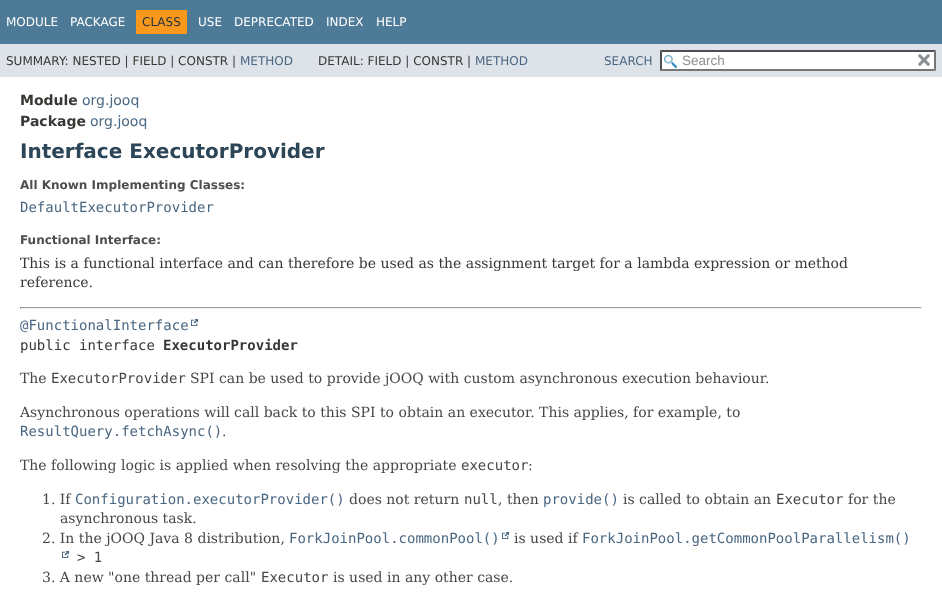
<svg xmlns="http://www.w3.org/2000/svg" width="942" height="595">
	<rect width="100%" height="100%" fill="#FFFFFF" />
	<rect x="0" y="0" width="942" height="44" fill="#4D7A97" />
	<g font-family="DejaVu Sans" font-size="12" fill="#FFFFFF">
		<text x="6" y="26">MODULE</text>
		<text x="70" y="26">PACKAGE</text>
	</g>
	<rect x="136" y="10" width="51" height="24" fill="#F8981D" />
	<text x="142" y="26" font-family="DejaVu Sans" font-size="12" fill="#253441">CLASS</text>
	<g font-family="DejaVu Sans" font-size="12" fill="#FFFFFF">
		<text x="198" y="26">USE</text>
		<text x="234" y="26">DEPRECATED</text>
		<text x="326" y="26">INDEX</text>
		<text x="376" y="26">HELP</text>
	</g>
	<rect x="0" y="44" width="942" height="33" fill="#DEE3E9" />
	<text x="6" y="65" font-family="DejaVu Sans" font-size="12" fill="#353833">SUMMARY: NESTED | FIELD | CONSTR |</text>
	<text x="240" y="65" font-family="DejaVu Sans" font-size="12" fill="#4A6782">METHOD</text>
	<text x="318" y="65" font-family="DejaVu Sans" font-size="12" fill="#353833">DETAIL: FIELD | CONSTR |</text>
	<g font-family="DejaVu Sans" font-size="12" fill="#4A6782">
		<text x="475" y="65">METHOD</text>
		<text x="604" y="65">SEARCH</text>
	</g>
	<rect x="660" y="50" width="276" height="21" fill="#FFFFFF" />
	<image x="664" y="55" width="13" height="13" href="assets/img1.png" />
	<path d="M660 50H936L934 52H662Z" fill="#4F4F4F" />
	<path d="M936 50V71L934 69V52Z" fill="#767676" />
	<path d="M936 71H660L662 69H934Z" fill="#767676" />
	<path d="M660 71V50L662 52V69Z" fill="#4F4F4F" />
	<text x="682" y="65" font-family="Liberation Sans" font-size="13.5" fill="#909090">Search</text>
	<image x="918" y="53" width="12" height="13" href="assets/img2.png" />
	<text x="20" y="105" font-family="DejaVu Sans" font-size="14" font-weight="700" fill="#353833">Module</text>
	<text x="82" y="105" font-family="DejaVu Sans" font-size="14" fill="#4A6782">org.jooq</text>
	<text x="20" y="126" font-family="DejaVu Sans" font-size="14" font-weight="700" fill="#353833">Package</text>
	<text x="90" y="126" font-family="DejaVu Sans" font-size="14" fill="#4A6782">org.jooq</text>
	<text x="20" y="158" font-family="DejaVu Sans" font-size="20" font-weight="700" fill="#2C4557">Interface ExecutorProvider</text>
	<text x="20" y="189" font-family="DejaVu Sans" font-size="12" font-weight="700" fill="#4E4E4E">All Known Implementing Classes:</text>
	<text x="20" y="212" font-family="DejaVu Sans Mono" font-size="14" fill="#4A6782">DefaultExecutorProvider</text>
	<text x="20" y="244" font-family="DejaVu Sans" font-size="12" font-weight="700" fill="#4E4E4E">Functional Interface:</text>
	<g font-family="DejaVu Serif" font-size="14" fill="#353833">
		<text x="20" y="268">This is a functional interface and can therefore be used as the assignment target for a lambda expression or method</text>
		<text x="20" y="287">reference.</text>
	</g>
	<rect x="20" y="307" width="902" height="1" fill="#9F9F9F" />
	<rect x="921" y="307" width="1" height="2" fill="#EEEEEE" />
	<rect x="20" y="308" width="902" height="1" fill="#EEEEEE" />
	<rect x="20" y="307" width="1" height="2" fill="#9F9F9F" />
	<text x="20" y="330" font-family="DejaVu Sans Mono" font-size="14" fill="#4A6782">@FunctionalInterface</text>
	<image x="191" y="319" width="7" height="7" href="assets/img3.png" />
	<text x="20" y="350" font-family="DejaVu Sans Mono" font-size="14" fill="#353833">public interface</text>
	<text x="163" y="350" font-family="DejaVu Sans Mono" font-size="14" font-weight="700" fill="#353833">ExecutorProvider</text>
	<text x="20" y="383" font-family="DejaVu Serif" font-size="14" fill="#474747">The</text>
	<text x="51" y="383" font-family="DejaVu Sans Mono" font-size="14" fill="#474747">ExecutorProvider</text>
	<g font-family="DejaVu Serif" font-size="14" fill="#474747">
		<text x="190" y="383">SPI can be used to provide jOOQ with custom asynchronous execution behaviour.</text>
		<text x="20" y="417">Asynchronous operations will call back to this SPI to obtain an executor. This applies, for example, to</text>
	</g>
	<text x="20" y="436" font-family="DejaVu Sans Mono" font-size="14" fill="#4A6782">ResultQuery.fetchAsync()</text>
	<g font-family="DejaVu Serif" font-size="14" fill="#474747">
		<text x="222" y="436">.</text>
		<text x="20" y="470">The following logic is applied when resolving the appropriate</text>
	</g>
	<text x="461" y="470" font-family="DejaVu Sans Mono" font-size="14" fill="#474747">executor</text>
	<g font-family="DejaVu Serif" font-size="14" fill="#474747">
		<text x="528" y="470">:</text>
		<text x="42" y="504">1. If</text>
	</g>
	<text x="75" y="504" font-family="DejaVu Sans Mono" font-size="14" fill="#4A6782">Configuration.executorProvider()</text>
	<text x="349" y="504" font-family="DejaVu Serif" font-size="14" fill="#474747">does not return</text>
	<text x="464" y="504" font-family="DejaVu Sans Mono" font-size="14" fill="#474747">null</text>
	<text x="498" y="504" font-family="DejaVu Serif" font-size="14" fill="#474747">, then</text>
	<text x="543" y="504" font-family="DejaVu Sans Mono" font-size="14" fill="#4A6782">provide()</text>
	<text x="623" y="504" font-family="DejaVu Serif" font-size="14" fill="#474747">is called to obtain an</text>
	<text x="776" y="504" font-family="DejaVu Sans Mono" font-size="14" fill="#474747">Executor</text>
	<g font-family="DejaVu Serif" font-size="14" fill="#474747">
		<text x="848" y="504">for the</text>
		<text x="60" y="523">asynchronous task.</text>
		<text x="42" y="543">2. In the jOOQ Java 8 distribution,</text>
	</g>
	<text x="582" y="543" font-family="DejaVu Sans Mono" font-size="14" fill="#4A6782">ForkJoinPool.getCommonPoolParallelism()</text>
	<image x="62" y="551" width="7" height="7" href="assets/img3.png" />
	<text x="77" y="562" font-family="DejaVu Sans Mono" font-size="14" fill="#474747">&gt; 1</text>
	<text x="289" y="543" font-family="DejaVu Sans Mono" font-size="14" fill="#4A6782">ForkJoinPool.commonPool()</text>
	<image x="502" y="532" width="7" height="7" href="assets/img3.png" />
	<g font-family="DejaVu Serif" font-size="14" fill="#474747">
		<text x="514" y="543">is used if</text>
		<text x="42" y="582">3. A new "one thread per call"</text>
	</g>
	<text x="261" y="582" font-family="DejaVu Sans Mono" font-size="14" fill="#474747">Executor</text>
	<text x="333" y="582" font-family="DejaVu Serif" font-size="14" fill="#474747">is used in any other case.</text>
</svg>
